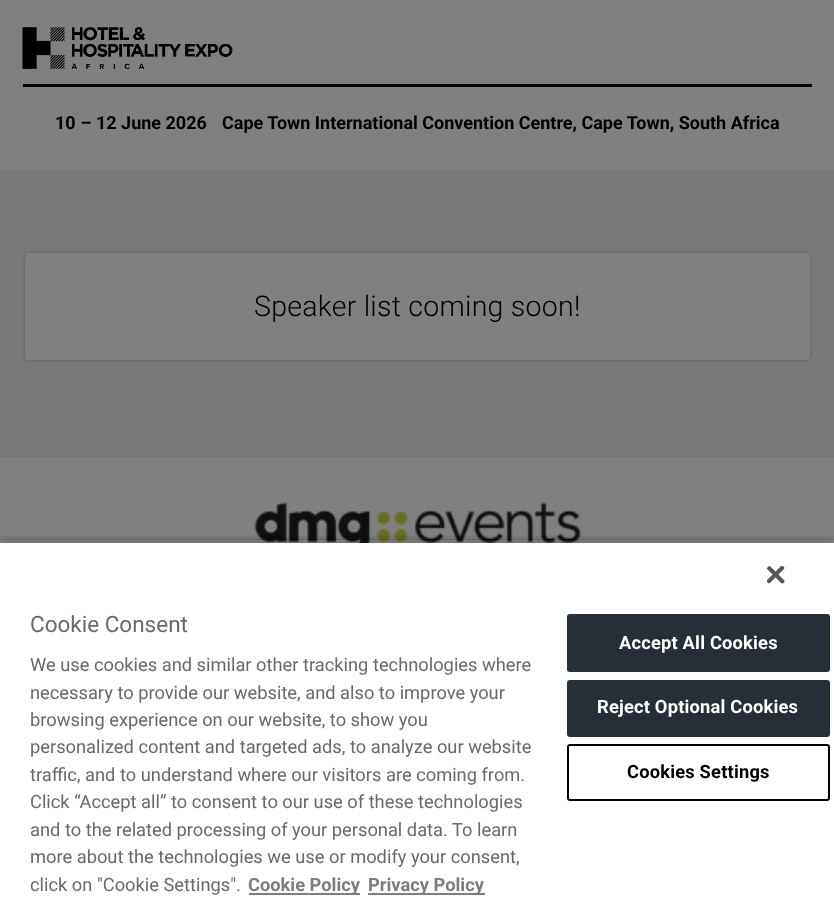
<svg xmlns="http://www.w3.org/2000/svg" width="834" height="898">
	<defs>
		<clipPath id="clip1"><rect x="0" y="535" width="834" height="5" /></clipPath>
	</defs>
	<rect width="100%" height="100%" fill="#808080" />
	<image x="22" y="27" width="211" height="42" href="assets/img1.png" />
	<rect x="23" y="84" width="789" height="3" fill="#000000" />
	<g font-family="Roboto" font-size="18" font-weight="700" fill="#000000">
		<text x="55" y="129">10 – 12 June 2026</text>
		<text x="222" y="129">Cape Town International Convention Centre, Cape Town, South Africa</text>
	</g>
	<rect x="0" y="170" width="834" height="288" fill="#79797B" />
	<rect x="24" y="252" width="787" height="109" rx="5" fill="#808080" stroke="#717171" stroke-width="2" />
	<text x="254" y="316" font-family="Roboto" font-size="28.5" font-weight="300" letter-spacing="0.25" fill="#000000">Speaker list coming soon!</text>
	<image x="254" y="502" width="327" height="41" href="assets/img2.png" />
	<g clip-path="url(#clip1)">
		<rect x="0" y="540" width="834" height="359" fill="#000000" fill-opacity="0.35" filter="blur(3px)" />
	</g>
	<rect x="0" y="543" width="834" height="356" fill="#000000" fill-opacity="0.2" filter="blur(3px)" />
	<rect x="0" y="543" width="834" height="355" fill="#FFFFFF" />
	<image x="767" y="566" width="18" height="18" href="assets/img3.png" />
	<text x="30" y="632" font-family="Roboto" font-size="22.5" fill="#696969">Cookie Consent</text>
	<g font-family="Roboto" font-size="18.3" fill="#696969">
		<text x="30" y="671">We use cookies and similar other tracking technologies where</text>
		<text x="30" y="699">necessary to provide our website, and also to improve your</text>
		<text x="30" y="726">browsing experience on our website, to show you</text>
		<text x="30" y="753">personalized content and targeted ads, to analyze our website</text>
		<text x="30" y="781">traffic, and to understand where our visitors are coming from.</text>
		<text x="30" y="808">Click “Accept all” to consent to our use of these technologies</text>
		<text x="30" y="836">and to the related processing of your personal data. To learn</text>
		<text x="30" y="863">more about the technologies we use or modify your consent,</text>
		<text x="30" y="891">click on "Cookie Settings".</text>
	</g>
	<rect x="249" y="893" width="111" height="2" fill="#7E7C7C" />
	<text x="248" y="891" font-family="Roboto" font-size="18.3" font-weight="700" fill="#7E7C7C">Cookie Policy</text>
	<rect x="368" y="893" width="117" height="2" fill="#7E7C7C" />
	<text x="368" y="891" font-family="Roboto" font-size="18.3" font-weight="700" fill="#7E7C7C">Privacy Policy</text>
	<rect x="568" y="615" width="261" height="56" rx="2" fill="#262E38" stroke="#262E38" stroke-width="2" />
	<text x="619" y="649" font-family="Roboto" font-size="18.3" font-weight="700" letter-spacing="0.2" fill="#FFFFFF">Accept All Cookies</text>
	<rect x="568" y="681" width="261" height="55" rx="2" fill="#262E38" stroke="#262E38" stroke-width="2" />
	<text x="597" y="713" font-family="Roboto" font-size="18.3" font-weight="700" letter-spacing="0.2" fill="#FFFFFF">Reject Optional Cookies</text>
	<rect x="568" y="745" width="261" height="55" rx="2" fill="none" stroke="#000000" stroke-width="2" />
	<text x="627" y="778" font-family="Roboto" font-size="18.3" font-weight="700" letter-spacing="0.2" fill="#000000">Cookies Settings</text>
</svg>
